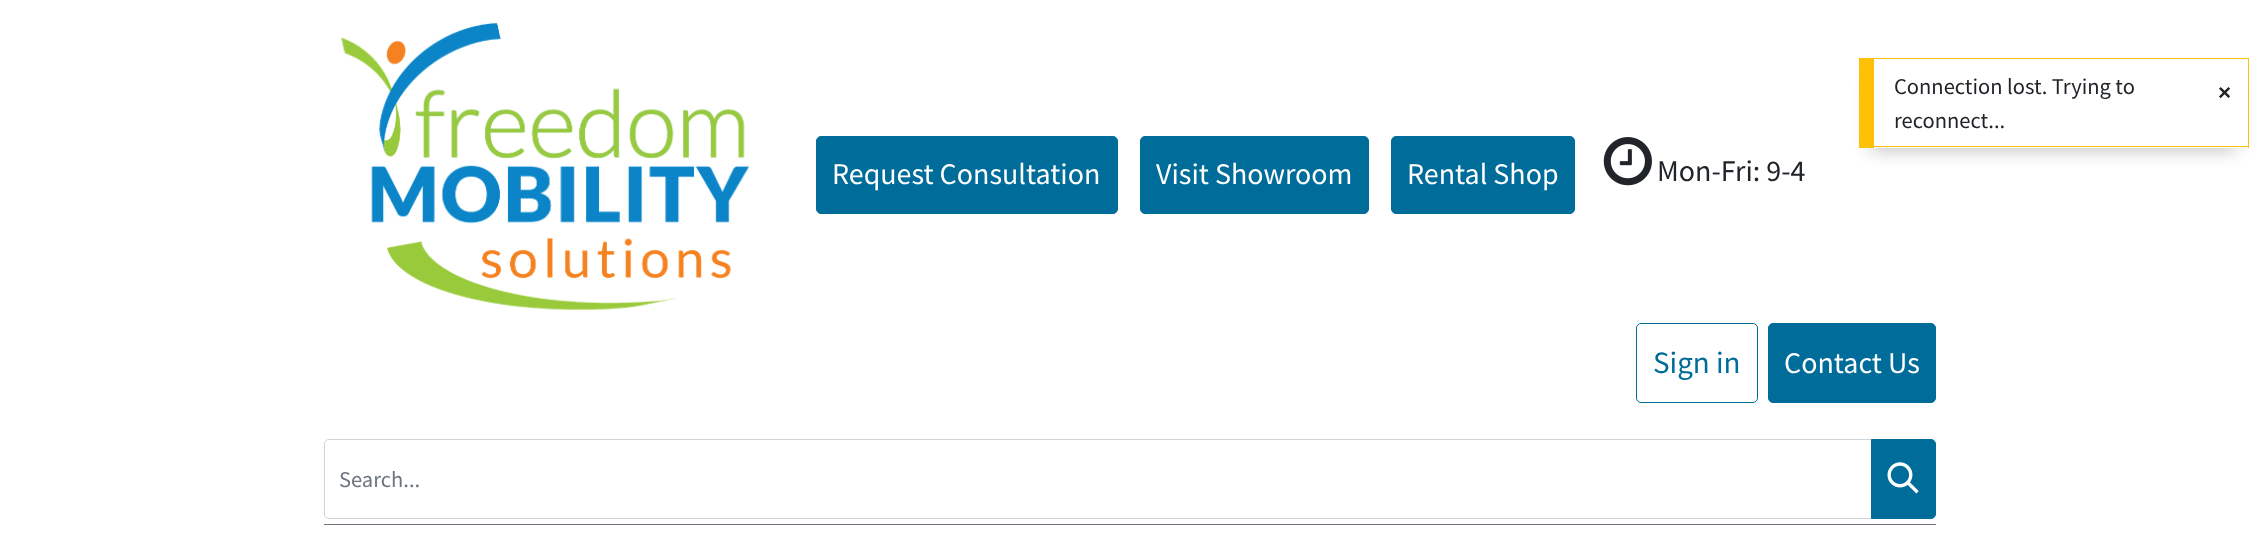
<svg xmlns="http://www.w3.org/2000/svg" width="2258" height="546">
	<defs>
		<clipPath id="clip1"><path d="M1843 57H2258V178H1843ZM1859 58H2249V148H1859Z" clip-rule="evenodd" /></clipPath>
	</defs>
	<rect width="100%" height="100%" fill="#FFFFFF" />
	<g clip-path="url(#clip1)">
		<rect x="1871" y="85" width="365" height="65" fill="#000000" fill-opacity="0.25" filter="blur(9px)" />
	</g>
	<rect x="1874" y="58" width="375" height="1" fill="#FFC107" />
	<rect x="2248" y="58" width="1" height="90" fill="#FFC107" />
	<rect x="1874" y="146" width="375" height="1" fill="#FFC107" />
	<rect x="1859" y="58" width="15" height="90" fill="#FFC107" />
	<g font-family="Source Sans Pro" font-size="22.5" fill="#212529">
		<text x="1894" y="94">Connection lost. Trying to</text>
		<text x="1894" y="128">reconnect...</text>
	</g>
	<text x="2218" y="100" font-family="Liberation Sans" font-size="22.5" font-weight="700" fill="#212529">×</text>
	<image x="340" y="22" width="410" height="288" href="assets/img1.png" />
	<rect x="816.5" y="136.5" width="301" height="77" rx="4.5" fill="#006C99" stroke="#006C99" />
	<text x="832" y="184" font-family="Source Sans Pro" font-size="30" fill="#FFFFFF">Request Consultation</text>
	<rect x="1140.5" y="136.5" width="228" height="77" rx="4.5" fill="#006C99" stroke="#006C99" />
	<text x="1156" y="184" font-family="Source Sans Pro" font-size="30" fill="#FFFFFF">Visit Showroom</text>
	<rect x="1391.5" y="136.5" width="183" height="77" rx="4.5" fill="#006C99" stroke="#006C99" />
	<text x="1407" y="184" font-family="Source Sans Pro" font-size="30" fill="#FFFFFF">Rental Shop</text>
	<image x="1603" y="137" width="49" height="49" href="assets/img2.png" />
	<text x="1657" y="181" font-family="Source Sans Pro" font-size="30" fill="#212529">Mon-Fri: 9-4</text>
	<rect x="1636.5" y="323.5" width="121" height="79" rx="4.5" fill="none" stroke="#006C99" />
	<text x="1653" y="373" font-family="Source Sans Pro" font-size="31" fill="#006C99">Sign in</text>
	<rect x="1768.5" y="323.5" width="167" height="79" rx="4.5" fill="#006C99" stroke="#006C99" />
	<text x="1784" y="373" font-family="Source Sans Pro" font-size="30" fill="#FFFFFF">Contact Us</text>
	<path d="M329 439.5H1872.5V518.5H329C326.5 518.5 324.5 516.5 324.5 514V444C324.5 441.5 326.5 439.5 329 439.5Z" fill="none" stroke="#CED4DA" />
	<text x="339" y="487" font-family="Source Sans Pro" font-size="22.5" fill="#6C757D">Search...</text>
	<path d="M1871.5 439.5H1931C1933.5 439.5 1935.5 441.5 1935.5 444V514C1935.5 516.5 1933.5 518.5 1931 518.5H1871.5Z" fill="#006C99" stroke="#006C99" />
	<image x="1887" y="462" width="32" height="32" href="assets/img3.png" />
	<rect x="324" y="524" width="1612" height="1" fill="#6C757D" />
</svg>
